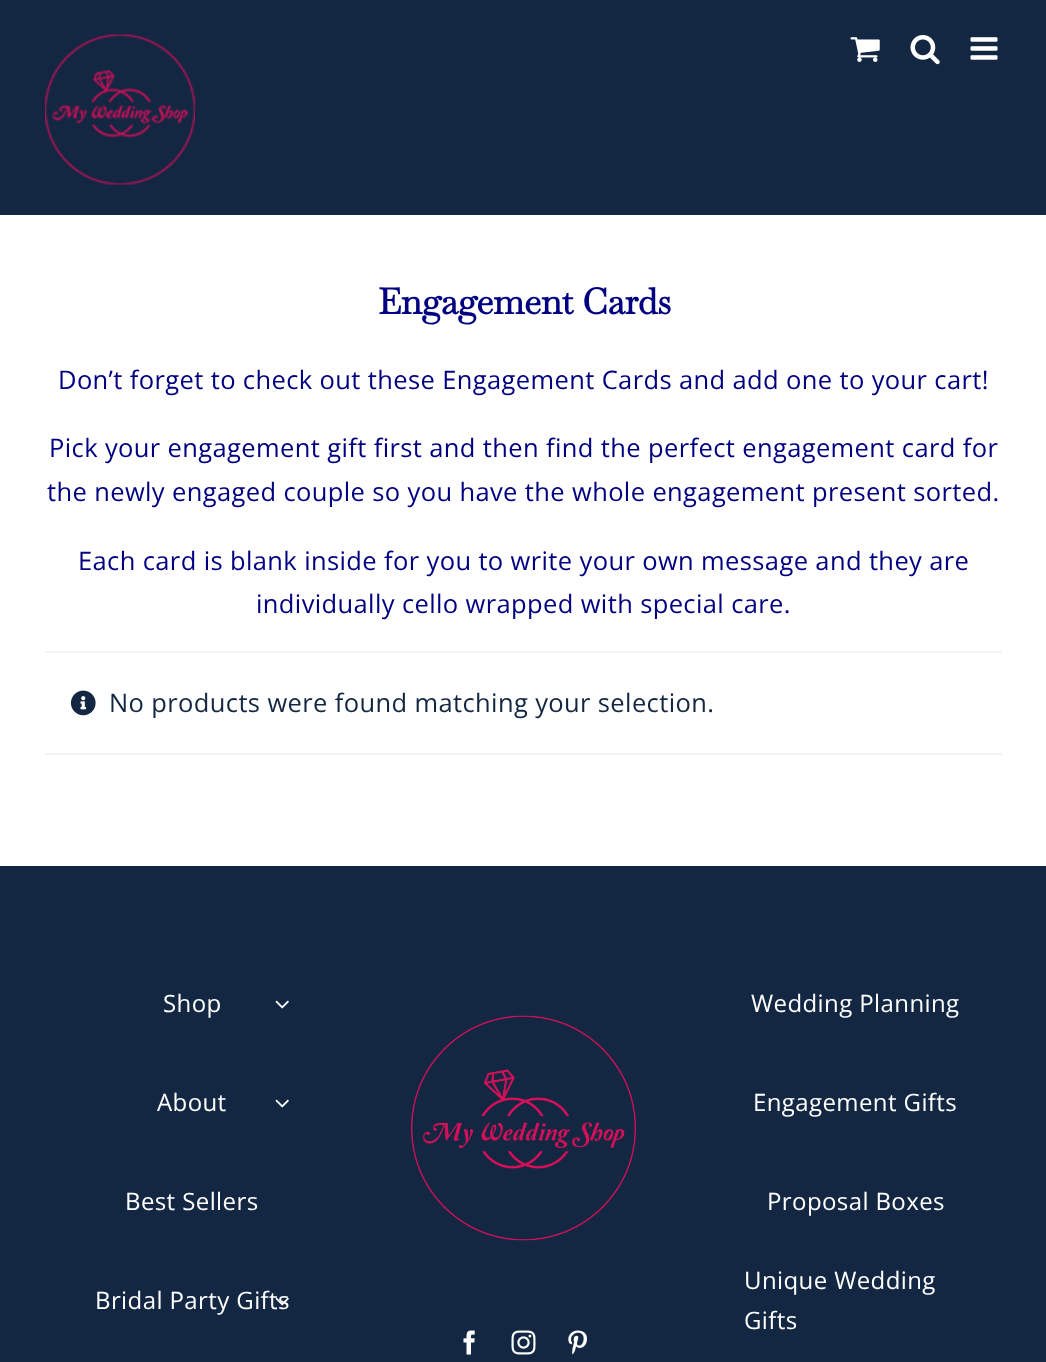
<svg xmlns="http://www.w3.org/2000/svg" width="1046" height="1362">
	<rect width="100%" height="100%" fill="#FFFFFF" />
	<rect x="0" y="0" width="1046" height="215" fill="#132742" />
	<image x="45" y="34" width="150" height="151" href="assets/img1.png" />
	<image x="850" y="37" width="30" height="25" href="assets/img2.png" />
	<image x="910" y="35" width="30" height="30" href="assets/img3.png" />
	<image x="970" y="37" width="28" height="23" href="assets/img4.png" />
	<text x="378" y="314" font-family="Baskervville" font-size="36" font-weight="700" letter-spacing="-0.5" fill="#000080">Engagement Cards</text>
	<g font-family="Open Sans" font-size="25.5" letter-spacing="0.38" fill="#000080">
		<text x="58" y="389">Don’t forget to check out these Engagement Cards and add one to your cart!</text>
		<text x="49" y="457">Pick your engagement gift first and then find the perfect engagement card for</text>
		<text x="47" y="501">the newly engaged couple so you have the whole engagement present sorted.</text>
		<text x="78" y="570">Each card is blank inside for you to write your own message and they are</text>
		<text x="256" y="613">individually cello wrapped with special care.</text>
	</g>
	<rect x="45" y="651" width="957" height="2" fill="#F2F3F5" />
	<rect x="45" y="753" width="957" height="2" fill="#F2F3F5" />
	<image x="70" y="690" width="26" height="26" href="assets/img5.png" />
	<text x="109" y="712" font-family="Open Sans" font-size="25.5" letter-spacing="0.38" fill="#132742">No products were found matching your selection.</text>
	<rect x="0" y="866" width="1046" height="496" fill="#132742" />
	<text x="163" y="1012" font-family="Open Sans" font-size="24" letter-spacing="0.4" fill="#FFFFFF">Shop</text>
	<image x="275" y="1000" width="14" height="9" href="assets/img6.png" />
	<text x="157" y="1111" font-family="Open Sans" font-size="24" letter-spacing="0.4" fill="#FFFFFF">About</text>
	<image x="275" y="1099" width="14" height="9" href="assets/img6.png" />
	<g font-family="Open Sans" font-size="24" letter-spacing="0.4" fill="#FFFFFF">
		<text x="125" y="1210">Best Sellers</text>
		<text x="95" y="1309">Bridal Party Gifts</text>
	</g>
	<image x="275" y="1297" width="14" height="9" href="assets/img7.png" />
	<image x="411" y="1015" width="225" height="226" href="assets/img8.png" />
	<image x="463" y="1330" width="12" height="25" href="assets/img9.png" />
	<image x="511" y="1330" width="25" height="25" href="assets/img10.png" />
	<image x="568" y="1330" width="19" height="25" href="assets/img11.png" />
	<g font-family="Open Sans" font-size="24" letter-spacing="0.4" fill="#FFFFFF">
		<text x="751" y="1012">Wedding Planning</text>
		<text x="753" y="1111">Engagement Gifts</text>
		<text x="767" y="1210">Proposal Boxes</text>
		<text x="744" y="1289">Unique Wedding</text>
		<text x="744" y="1329">Gifts</text>
	</g>
</svg>
